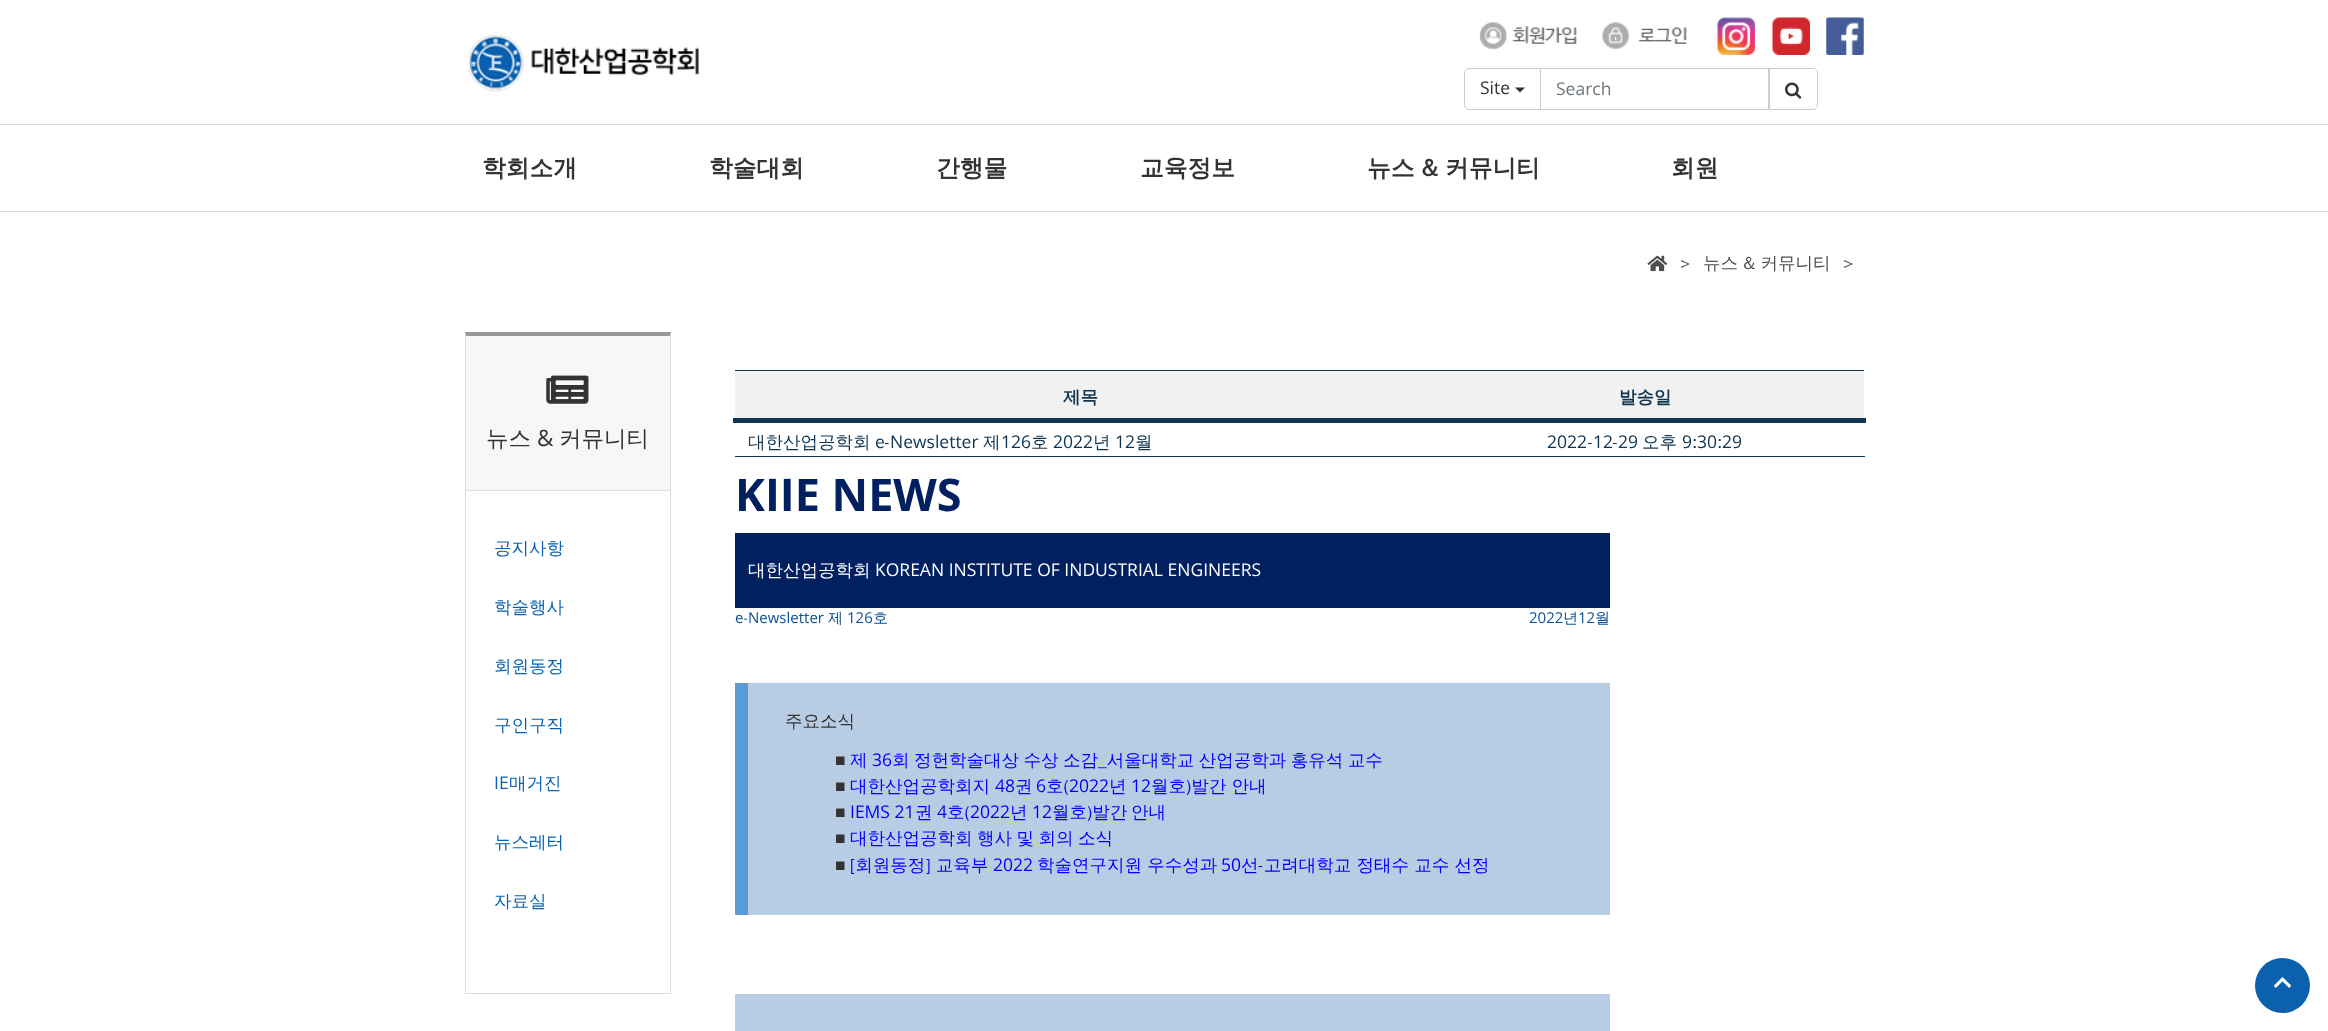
<svg xmlns="http://www.w3.org/2000/svg" width="2328" height="1031">
	<rect width="100%" height="100%" fill="#FFFFFF" />
	<rect x="0" y="124" width="2328" height="1" fill="#DBDBDB" />
	<image x="468" y="35" width="231" height="57" href="assets/img1.png" />
	<image x="1479" y="22" width="98" height="27" href="assets/img2.png" />
	<image x="1602" y="22" width="85" height="27" href="assets/img3.png" />
	<image x="1717" y="17" width="38" height="38" href="assets/img4.png" />
	<image x="1772" y="17" width="38" height="38" href="assets/img5.png" />
	<image x="1826" y="17" width="38" height="38" href="assets/img6.png" />
	<rect x="1540.5" y="68.5" width="228" height="41" fill="none" stroke="#CCCCCC" />
	<path d="M1469 68.5H1540.5V109.5H1469C1466.5 109.5 1464.5 107.5 1464.5 105V73C1464.5 70.5 1466.5 68.5 1469 68.5Z" fill="#FFFFFF" stroke="#CCCCCC" />
	<text x="1480" y="94" font-family="Open Sans" font-size="17.5" fill="#333333">Site</text>
	<path d="M1515 87.5H1525L1520 92.5Z" fill="#333333" />
	<text x="1556" y="95" font-family="Open Sans" font-size="17.5" fill="#6C757D">Search</text>
	<path d="M1769.5 68.5H1813C1815.5 68.5 1817.5 70.5 1817.5 73V105C1817.5 107.5 1815.5 109.5 1813 109.5H1769.5Z" fill="none" stroke="#CCCCCC" />
	<image x="1785" y="82" width="17" height="17" href="assets/img7.png" />
	<g font-family="WenQuanYi Zen Hei" font-size="23.75" font-weight="700" fill="#333333">
		<text x="482" y="176">학회소개</text>
		<text x="709" y="176">학술대회</text>
		<text x="936" y="176">간행물</text>
		<text x="1140" y="176">교육정보</text>
		<text x="1367" y="176">뉴스 &amp; 커뮤니티</text>
		<text x="1671" y="176">회원</text>
	</g>
	<rect x="0" y="211" width="2328" height="1" fill="#DBDBDB" />
	<image x="1647" y="255" width="21" height="17" href="assets/img8.png" />
	<g font-family="WenQuanYi Zen Hei" font-size="17.5" font-weight="500" fill="#4F4F4F">
		<text x="1680" y="269">&gt;</text>
		<text x="1703" y="269">뉴스 &amp; 커뮤니티</text>
		<text x="1843" y="269">&gt;</text>
	</g>
	<path d="M465 332H671L670 336H466Z" fill="#989898" />
	<path d="M671 332V994L670 992V336Z" fill="#DCDCDC" />
	<rect x="465" y="993" width="206" height="1" fill="#DCDCDC" />
	<path d="M465 994V332L466 336V992Z" fill="#DCDCDC" />
	<rect x="466" y="336" width="204" height="154" fill="#F7F7F7" />
	<rect x="466" y="490" width="204" height="1" fill="#DCDCDC" />
	<image x="546" y="375" width="43" height="29" href="assets/img9.png" />
	<text x="486" y="446" font-family="WenQuanYi Zen Hei" font-size="22.5" font-weight="500" fill="#333333">뉴스</text>
	<text x="537" y="446" font-family="Open Sans" font-size="22.5" fill="#333333">&amp;</text>
	<text x="559" y="446" font-family="WenQuanYi Zen Hei" font-size="22.5" font-weight="500" fill="#333333">커뮤니티</text>
	<g font-family="WenQuanYi Zen Hei" font-size="17.5" font-weight="500" fill="#0B61AE">
		<text x="494" y="554">공지사항</text>
		<text x="494" y="613">학술행사</text>
		<text x="494" y="672">회원동정</text>
		<text x="494" y="731">구인구직</text>
	</g>
	<text x="494" y="789" font-family="Open Sans" font-size="17.5" fill="#0B61AE">IE</text>
	<g font-family="WenQuanYi Zen Hei" font-size="17.5" font-weight="500" fill="#0B61AE">
		<text x="509" y="789">매거진</text>
		<text x="494" y="848">뉴스레터</text>
		<text x="494" y="907">자료실</text>
	</g>
	<rect x="735" y="370" width="1129" height="1" fill="#0F3552" />
	<rect x="735" y="371" width="1129" height="47" fill="#F1F1F1" />
	<text x="1063" y="403" font-family="WenQuanYi Zen Hei" font-size="17.5" font-weight="700" fill="#0F3552">제목</text>
	<rect x="733" y="418" width="1133" height="5" fill="#0F3552" />
	<text x="1619" y="403" font-family="WenQuanYi Zen Hei" font-size="17.5" font-weight="700" fill="#0F3552">발송일</text>
	<text x="748" y="448" font-family="WenQuanYi Zen Hei" font-size="17.5" font-weight="500" fill="#0F3552">대한산업공학회</text>
	<text x="875" y="448" font-family="Open Sans" font-size="17.5" fill="#0F3552">e</text>
	<text x="885" y="448" font-family="WenQuanYi Zen Hei" font-size="17.5" font-weight="500" fill="#0F3552">-</text>
	<text x="890" y="448" font-family="Open Sans" font-size="17.5" fill="#0F3552">Newsletter</text>
	<text x="983" y="448" font-family="WenQuanYi Zen Hei" font-size="17.5" font-weight="500" fill="#0F3552">제</text>
	<text x="1001" y="448" font-family="Open Sans" font-size="17.5" fill="#0F3552">126</text>
	<text x="1031" y="448" font-family="WenQuanYi Zen Hei" font-size="17.5" font-weight="500" fill="#0F3552">호</text>
	<text x="1053" y="448" font-family="Open Sans" font-size="17.5" fill="#0F3552">2022</text>
	<text x="1093" y="448" font-family="WenQuanYi Zen Hei" font-size="17.5" font-weight="500" fill="#0F3552">년</text>
	<text x="1115" y="448" font-family="Open Sans" font-size="17.5" fill="#0F3552">12</text>
	<text x="1135" y="448" font-family="WenQuanYi Zen Hei" font-size="17.5" font-weight="500" fill="#0F3552">월</text>
	<rect x="735" y="456" width="1130" height="1" fill="#0F3552" />
	<text x="1547" y="448" font-family="Open Sans" font-size="17.5" fill="#0F3552">2022</text>
	<text x="1588" y="448" font-family="WenQuanYi Zen Hei" font-size="17.5" font-weight="500" fill="#0F3552">-</text>
	<text x="1593" y="448" font-family="Open Sans" font-size="17.5" fill="#0F3552">12</text>
	<text x="1613" y="448" font-family="WenQuanYi Zen Hei" font-size="17.5" font-weight="500" fill="#0F3552">-</text>
	<text x="1618" y="448" font-family="Open Sans" font-size="17.5" fill="#0F3552">29</text>
	<text x="1642" y="448" font-family="WenQuanYi Zen Hei" font-size="17.5" font-weight="500" fill="#0F3552">오후</text>
	<text x="1682" y="448" font-family="Open Sans" font-size="17.5" fill="#0F3552">9</text>
	<text x="1692" y="448" font-family="WenQuanYi Zen Hei" font-size="17.5" font-weight="500" fill="#0F3552">:</text>
	<text x="1697" y="448" font-family="Open Sans" font-size="17.5" fill="#0F3552">30</text>
	<text x="1717" y="448" font-family="WenQuanYi Zen Hei" font-size="17.5" font-weight="500" fill="#0F3552">:</text>
	<text x="1722" y="448" font-family="Open Sans" font-size="17.5" fill="#0F3552">29</text>
	<text x="735" y="511" font-family="Open Sans" font-size="45" font-weight="700" fill="#002060">KIIE NEWS</text>
	<rect x="735" y="533" width="875" height="75" fill="#002060" />
	<text x="748" y="576" font-family="WenQuanYi Zen Hei" font-size="17.5" font-weight="500" fill="#FFFFFF">대한산업공학회</text>
	<text x="875" y="576" font-family="Open Sans" font-size="17.5" fill="#FFFFFF">KOREAN INSTITUTE OF INDUSTRIAL ENGINEERS</text>
	<text x="735" y="623" font-family="Open Sans" font-size="15" fill="#085296">e</text>
	<text x="744" y="623" font-family="WenQuanYi Zen Hei" font-size="15" font-weight="500" fill="#085296">-</text>
	<text x="748" y="623" font-family="Open Sans" font-size="15" fill="#085296">Newsletter</text>
	<text x="828" y="623" font-family="WenQuanYi Zen Hei" font-size="15" font-weight="500" fill="#085296">제</text>
	<text x="847" y="623" font-family="Open Sans" font-size="15" fill="#085296">126</text>
	<text x="873" y="623" font-family="WenQuanYi Zen Hei" font-size="15" font-weight="500" fill="#085296">호</text>
	<text x="1529" y="623" font-family="Open Sans" font-size="15" fill="#085296">2022</text>
	<text x="1563" y="623" font-family="WenQuanYi Zen Hei" font-size="15" font-weight="500" fill="#085296">년</text>
	<text x="1578" y="623" font-family="Open Sans" font-size="15" fill="#085296">12</text>
	<text x="1595" y="623" font-family="WenQuanYi Zen Hei" font-size="15" font-weight="500" fill="#085296">월</text>
	<rect x="735" y="683" width="13" height="232" fill="#5B9BD5" />
	<rect x="748" y="683" width="862" height="232" fill="#B8CCE4" />
	<text x="785" y="727" font-family="WenQuanYi Zen Hei" font-size="17.5" font-weight="500" fill="#333333">주요소식</text>
	<text x="835" y="766" font-family="Liberation Sans" font-size="17.5" fill="#333333">■</text>
	<text x="850" y="766" font-family="WenQuanYi Zen Hei" font-size="17.5" font-weight="500" fill="#0000FF">제</text>
	<text x="872" y="766" font-family="Open Sans" font-size="17.5" fill="#0000FF">36</text>
	<text x="892" y="766" word-spacing="-0.75" font-family="WenQuanYi Zen Hei" font-size="17.5" font-weight="500" fill="#0000FF">회 정헌학술대상 수상 소감_서울대학교 산업공학과 홍유석 교수</text>
	<text x="835" y="792" font-family="Liberation Sans" font-size="17.5" fill="#333333">■</text>
	<text x="850" y="792" font-family="WenQuanYi Zen Hei" font-size="17.5" font-weight="500" fill="#0000FF">대한산업공학회지</text>
	<text x="995" y="792" font-family="Open Sans" font-size="17.5" fill="#0000FF">48</text>
	<text x="1015" y="792" font-family="WenQuanYi Zen Hei" font-size="17.5" font-weight="500" fill="#0000FF">권</text>
	<text x="1036" y="792" font-family="Open Sans" font-size="17.5" fill="#0000FF">6</text>
	<text x="1046" y="792" font-family="WenQuanYi Zen Hei" font-size="17.5" font-weight="500" fill="#0000FF">호(</text>
	<text x="1069" y="792" font-family="Open Sans" font-size="17.5" fill="#0000FF">2022</text>
	<text x="1109" y="792" font-family="WenQuanYi Zen Hei" font-size="17.5" font-weight="500" fill="#0000FF">년</text>
	<text x="1131" y="792" font-family="Open Sans" font-size="17.5" fill="#0000FF">12</text>
	<text x="1151" y="792" font-family="WenQuanYi Zen Hei" font-size="17.5" font-weight="500" fill="#0000FF">월호)발간 안내</text>
	<text x="835" y="818" font-family="Liberation Sans" font-size="17.5" fill="#333333">■</text>
	<text x="850" y="818" font-family="Open Sans" font-size="17.5" fill="#0000FF">IEMS 21</text>
	<text x="915" y="818" font-family="WenQuanYi Zen Hei" font-size="17.5" font-weight="500" fill="#0000FF">권</text>
	<text x="937" y="818" font-family="Open Sans" font-size="17.5" fill="#0000FF">4</text>
	<text x="947" y="818" font-family="WenQuanYi Zen Hei" font-size="17.5" font-weight="500" fill="#0000FF">호(</text>
	<text x="970" y="818" font-family="Open Sans" font-size="17.5" fill="#0000FF">2022</text>
	<text x="1010" y="818" font-family="WenQuanYi Zen Hei" font-size="17.5" font-weight="500" fill="#0000FF">년</text>
	<text x="1032" y="818" font-family="Open Sans" font-size="17.5" fill="#0000FF">12</text>
	<g font-family="WenQuanYi Zen Hei" font-size="17.5" font-weight="500" fill="#0000FF">
		<text x="1052" y="818">월호)발간</text>
		<text x="1131" y="818">안내</text>
	</g>
	<text x="835" y="844" font-family="Liberation Sans" font-size="17.5" fill="#333333">■</text>
	<text x="850" y="844" word-spacing="-0.75" font-family="WenQuanYi Zen Hei" font-size="17.5" font-weight="500" fill="#0000FF">대한산업공학회 행사 및 회의 소식</text>
	<text x="835" y="871" font-family="Liberation Sans" font-size="17.5" fill="#333333">■</text>
	<text x="850" y="871" font-family="WenQuanYi Zen Hei" font-size="17.5" font-weight="500" fill="#0000FF">[회원동정] 교육부</text>
	<text x="993" y="871" font-family="Open Sans" font-size="17.5" fill="#0000FF">2022</text>
	<text x="1037" y="871" font-family="WenQuanYi Zen Hei" font-size="17.5" font-weight="500" fill="#0000FF">학술연구지원 우수성과</text>
	<text x="1221" y="871" font-family="Open Sans" font-size="17.5" fill="#0000FF">50</text>
	<text x="1241" y="871" font-family="WenQuanYi Zen Hei" font-size="17.5" font-weight="500" fill="#0000FF">선-고려대학교 정태수 교수 선정</text>
	<rect x="735" y="994" width="875" height="37" fill="#B8CCE4" />
	<circle cx="2282.5" cy="985.5" r="27.5" fill="#0B61AE" />
	<image x="2274" y="977" width="17" height="11" href="assets/img10.png" />
</svg>
